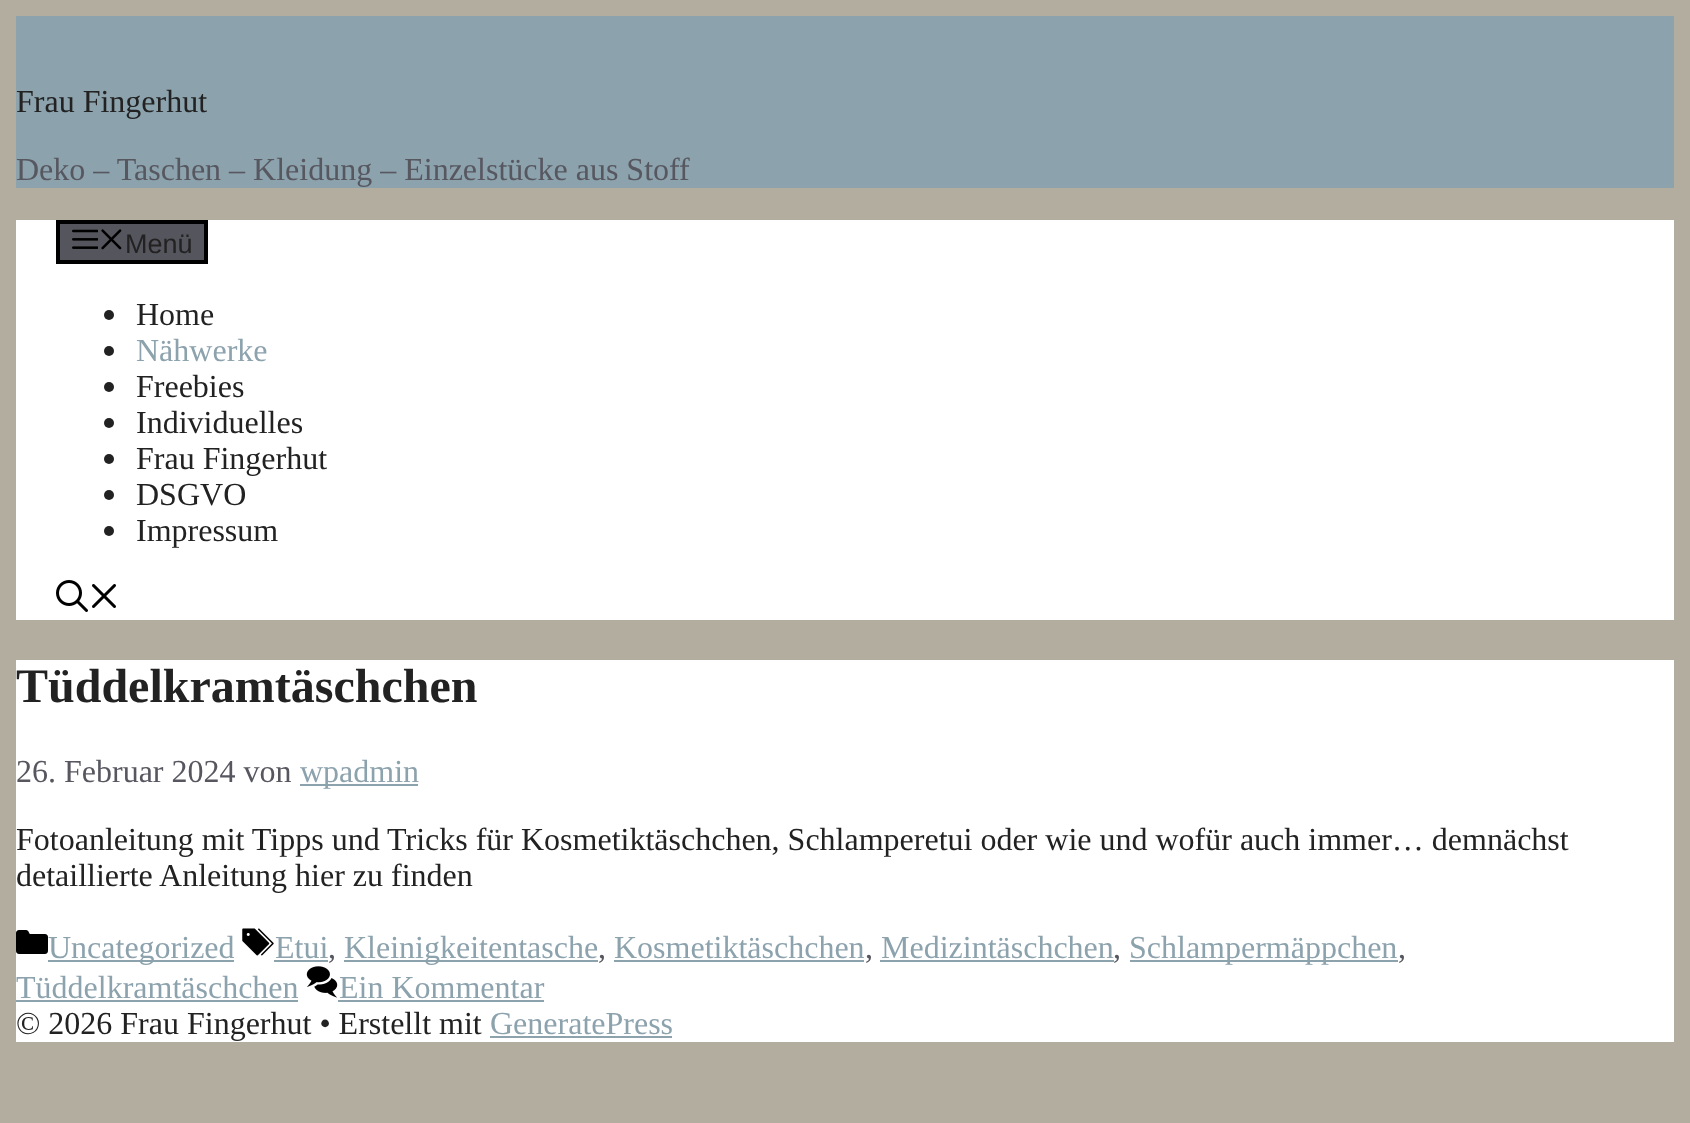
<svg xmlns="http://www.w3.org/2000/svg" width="1690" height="1123">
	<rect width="100%" height="100%" fill="#B3AD9F" />
	<rect x="16" y="16" width="1658" height="172" fill="#8CA2AD" />
	<text x="16" y="112" font-family="Liberation Serif" font-size="32" fill="#222222">Frau Fingerhut</text>
	<text x="16" y="180" font-family="Liberation Serif" font-size="32" fill="#575760">Deko – Taschen – Kleidung – Einzelstücke aus Stoff</text>
	<rect x="16" y="220" width="1658" height="400" fill="#FFFFFF" />
	<rect x="58" y="222" width="148" height="40" fill="#55555E" stroke="#000000" stroke-width="4" />
	<image x="72" y="229" width="26" height="20" href="assets/img1.png" />
	<image x="101" y="229" width="21" height="21" href="assets/img2.png" />
	<text x="125" y="253" font-family="Liberation Sans" font-size="27" fill="#222222">Menü</text>
	<circle cx="109" cy="315" r="5" fill="#222222" />
	<text x="136" y="325" font-family="Liberation Serif" font-size="32" fill="#222222">Home</text>
	<circle cx="109" cy="351" r="5" fill="#222222" />
	<text x="136" y="361" font-family="Liberation Serif" font-size="32" fill="#8CA2AD">Nähwerke</text>
	<circle cx="109" cy="387" r="5" fill="#222222" />
	<text x="136" y="397" font-family="Liberation Serif" font-size="32" fill="#222222">Freebies</text>
	<circle cx="109" cy="423" r="5" fill="#222222" />
	<text x="136" y="433" font-family="Liberation Serif" font-size="32" fill="#222222">Individuelles</text>
	<circle cx="109" cy="459" r="5" fill="#222222" />
	<text x="136" y="469" font-family="Liberation Serif" font-size="32" fill="#222222">Frau Fingerhut</text>
	<circle cx="109" cy="495" r="5" fill="#222222" />
	<text x="136" y="505" font-family="Liberation Serif" font-size="32" fill="#222222">DSGVO</text>
	<circle cx="109" cy="531" r="5" fill="#222222" />
	<text x="136" y="541" font-family="Liberation Serif" font-size="32" fill="#222222">Impressum</text>
	<image x="56" y="580" width="32" height="32" href="assets/img3.png" />
	<image x="92" y="584" width="24" height="24" href="assets/img4.png" />
	<rect x="16" y="660" width="1658" height="382" fill="#FFFFFF" />
	<text x="16" y="702" font-family="Liberation Serif" font-size="48" font-weight="700" fill="#222222">Tüddelkramtäschchen</text>
	<text x="16" y="782" font-family="Liberation Serif" font-size="32" fill="#575760">26. Februar 2024 von</text>
	<rect x="300" y="784" width="118" height="2" fill="#8CA2AD" />
	<text x="300" y="782" font-family="Liberation Serif" font-size="32" fill="#8CA2AD">wpadmin</text>
	<g font-family="Liberation Serif" font-size="32" fill="#222222">
		<text x="16" y="850">Fotoanleitung mit Tipps und Tricks für Kosmetiktäschchen, Schlamperetui oder wie und wofür auch immer… demnächst</text>
		<text x="16" y="886">detaillierte Anleitung hier zu finden</text>
	</g>
	<image x="16" y="930" width="32" height="24" href="assets/img5.png" />
	<rect x="48" y="960" width="186" height="2" fill="#8CA2AD" />
	<text x="48" y="958" font-family="Liberation Serif" font-size="32" fill="#8CA2AD">Uncategorized</text>
	<image x="242" y="928" width="32" height="28" href="assets/img6.png" />
	<text x="275" y="958" font-family="Liberation Serif" font-size="32" fill="#8CA2AD">Etui</text>
	<text x="328" y="958" font-family="Liberation Serif" font-size="32" fill="#575760">,</text>
	<rect x="274" y="960" width="54" height="2" fill="#8CA2AD" />
	<rect x="344" y="960" width="254" height="2" fill="#8CA2AD" />
	<text x="344" y="958" font-family="Liberation Serif" font-size="32" fill="#8CA2AD">Kleinigkeitentasche</text>
	<text x="598" y="958" font-family="Liberation Serif" font-size="32" fill="#575760">,</text>
	<text x="614" y="958" font-family="Liberation Serif" font-size="32" fill="#8CA2AD">Kosmetiktäschchen</text>
	<text x="865" y="958" font-family="Liberation Serif" font-size="32" fill="#575760">,</text>
	<rect x="614" y="960" width="250" height="2" fill="#8CA2AD" />
	<text x="881" y="958" font-family="Liberation Serif" font-size="32" fill="#8CA2AD">Medizintäschchen</text>
	<text x="1113" y="958" font-family="Liberation Serif" font-size="32" fill="#575760">,</text>
	<rect x="880" y="960" width="234" height="2" fill="#8CA2AD" />
	<rect x="1130" y="960" width="268" height="2" fill="#8CA2AD" />
	<text x="1129" y="958" font-family="Liberation Serif" font-size="32" fill="#8CA2AD">Schlampermäppchen</text>
	<text x="1398" y="958" font-family="Liberation Serif" font-size="32" fill="#575760">,</text>
	<text x="16" y="998" font-family="Liberation Serif" font-size="32" fill="#8CA2AD">Tüddelkramtäschchen</text>
	<rect x="16" y="1000" width="282" height="2" fill="#8CA2AD" />
	<image x="306" y="966" width="32" height="32" href="assets/img7.png" />
	<text x="339" y="998" font-family="Liberation Serif" font-size="32" fill="#8CA2AD">Ein Kommentar</text>
	<rect x="338" y="1000" width="206" height="2" fill="#8CA2AD" />
	<text x="16" y="1034" font-family="Liberation Serif" font-size="32" fill="#222222">© 2026 Frau Fingerhut • Erstellt mit</text>
	<text x="490" y="1034" font-family="Liberation Serif" font-size="32" fill="#8CA2AD">GeneratePress</text>
	<rect x="490" y="1036" width="182" height="2" fill="#8CA2AD" />
</svg>
